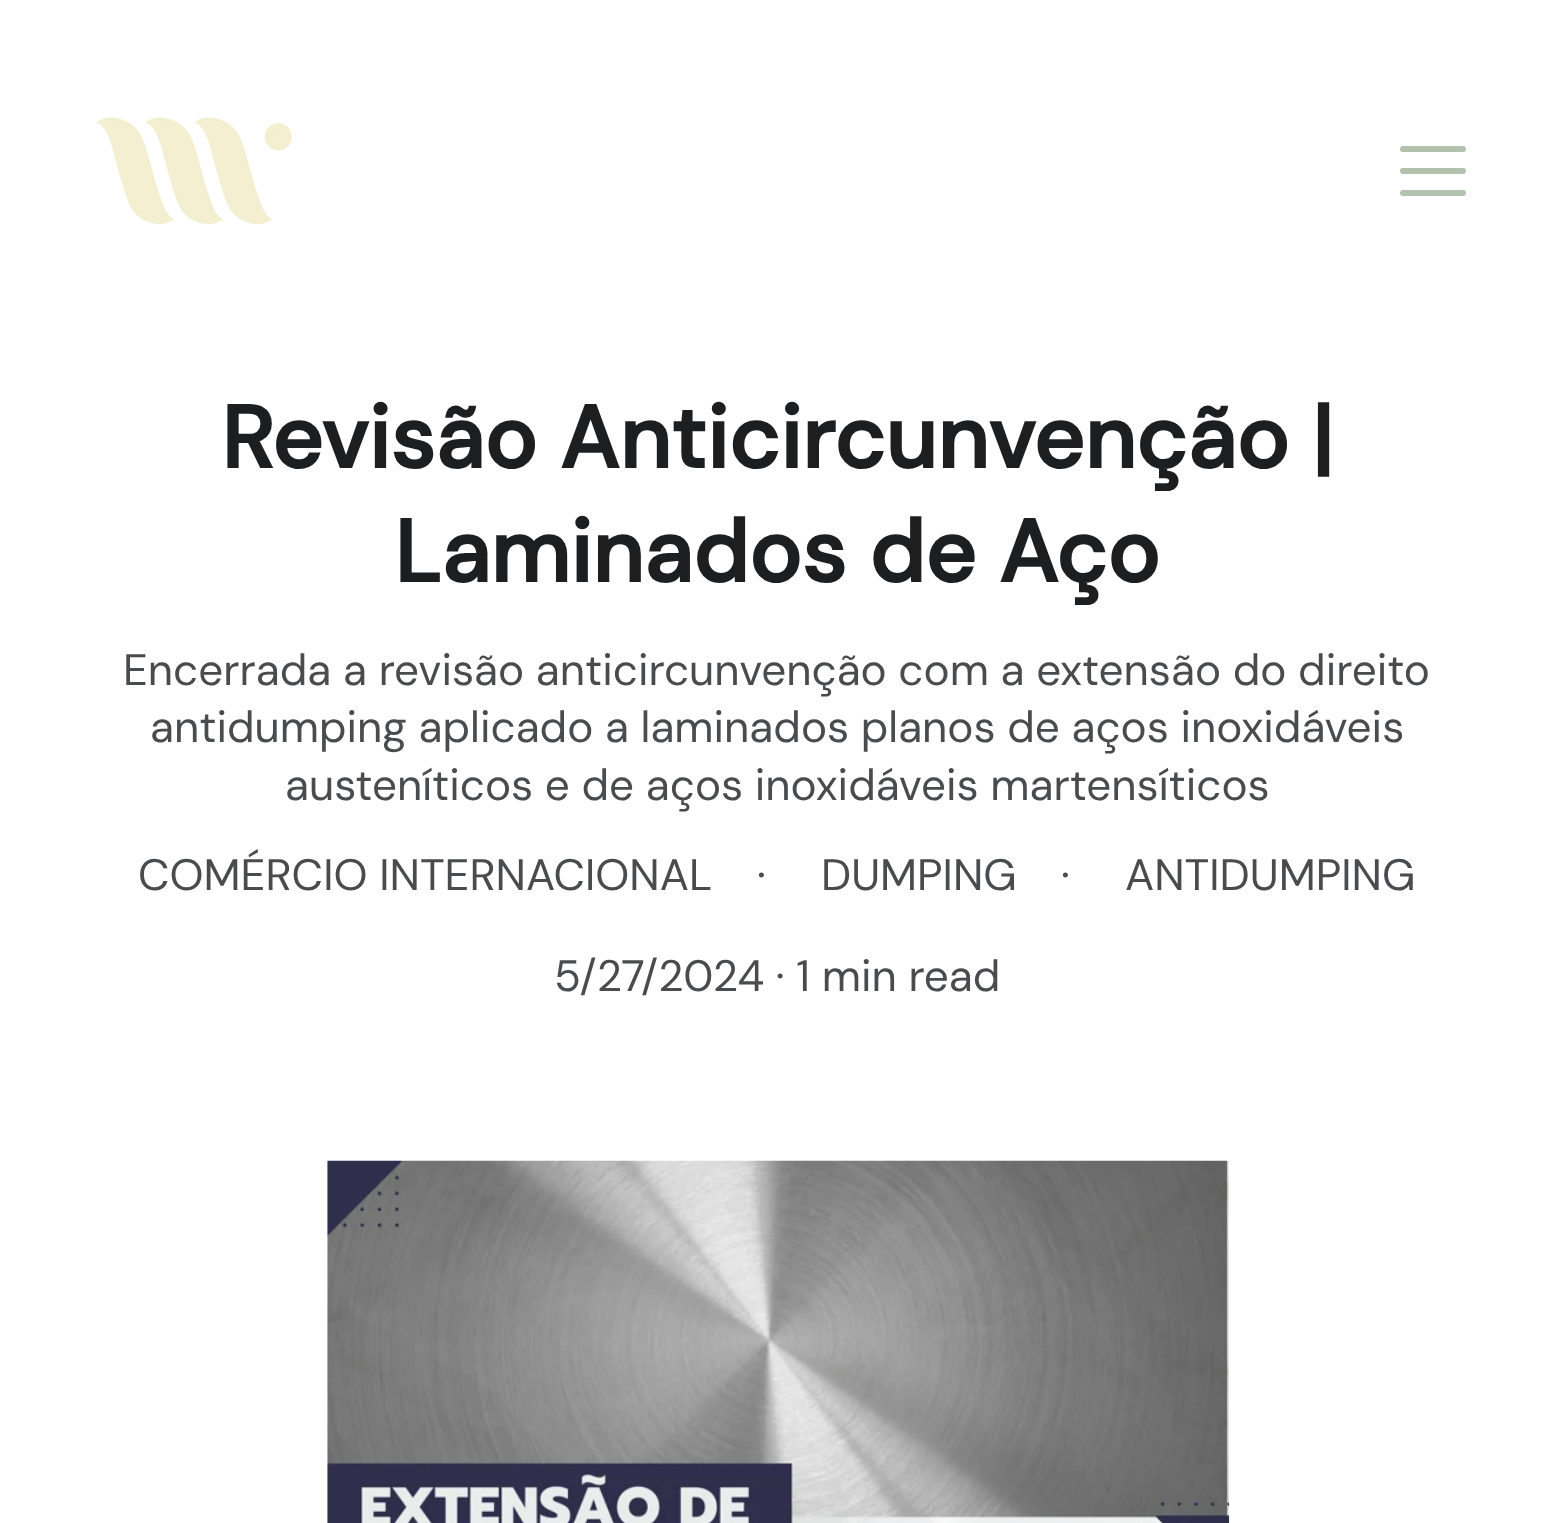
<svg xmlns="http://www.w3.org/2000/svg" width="1553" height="1523">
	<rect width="100%" height="100%" fill="#FFFFFF" />
	<image x="96" y="117" width="196" height="107" href="assets/img1.png" />
	<rect x="1400" y="146" width="66" height="6" rx="3" fill="#B2C2AD" />
	<rect x="1400" y="168" width="66" height="6" rx="3" fill="#B2C2AD" />
	<rect x="1400" y="190" width="66" height="6" rx="3" fill="#B2C2AD" />
	<g font-family="DM Sans" font-size="88" font-weight="700" fill="#1D1E20">
		<text x="221" y="468">Revisão Anticircunvenção |</text>
		<text x="394" y="582">Laminados de Aço</text>
	</g>
	<g font-family="DM Sans" font-size="44" fill="#4A4B4D">
		<text x="123" y="685">Encerrada a revisão anticircunvenção com a extensão do direito</text>
		<text x="150" y="742">antidumping aplicado a laminados planos de aços inoxidáveis</text>
		<text x="285" y="800">austeníticos e de aços inoxidáveis martensíticos</text>
		<text x="138" y="890">COMÉRCIO INTERNACIONAL</text>
		<text x="757" y="890">·</text>
		<text x="821" y="890">DUMPING</text>
		<text x="1061" y="890">·</text>
		<text x="1125" y="890">ANTIDUMPING</text>
		<text x="554" y="991">5/27/2024 · 1 min read</text>
	</g>
	<image x="327" y="1160" width="903" height="363" href="assets/img2.png" />
</svg>
